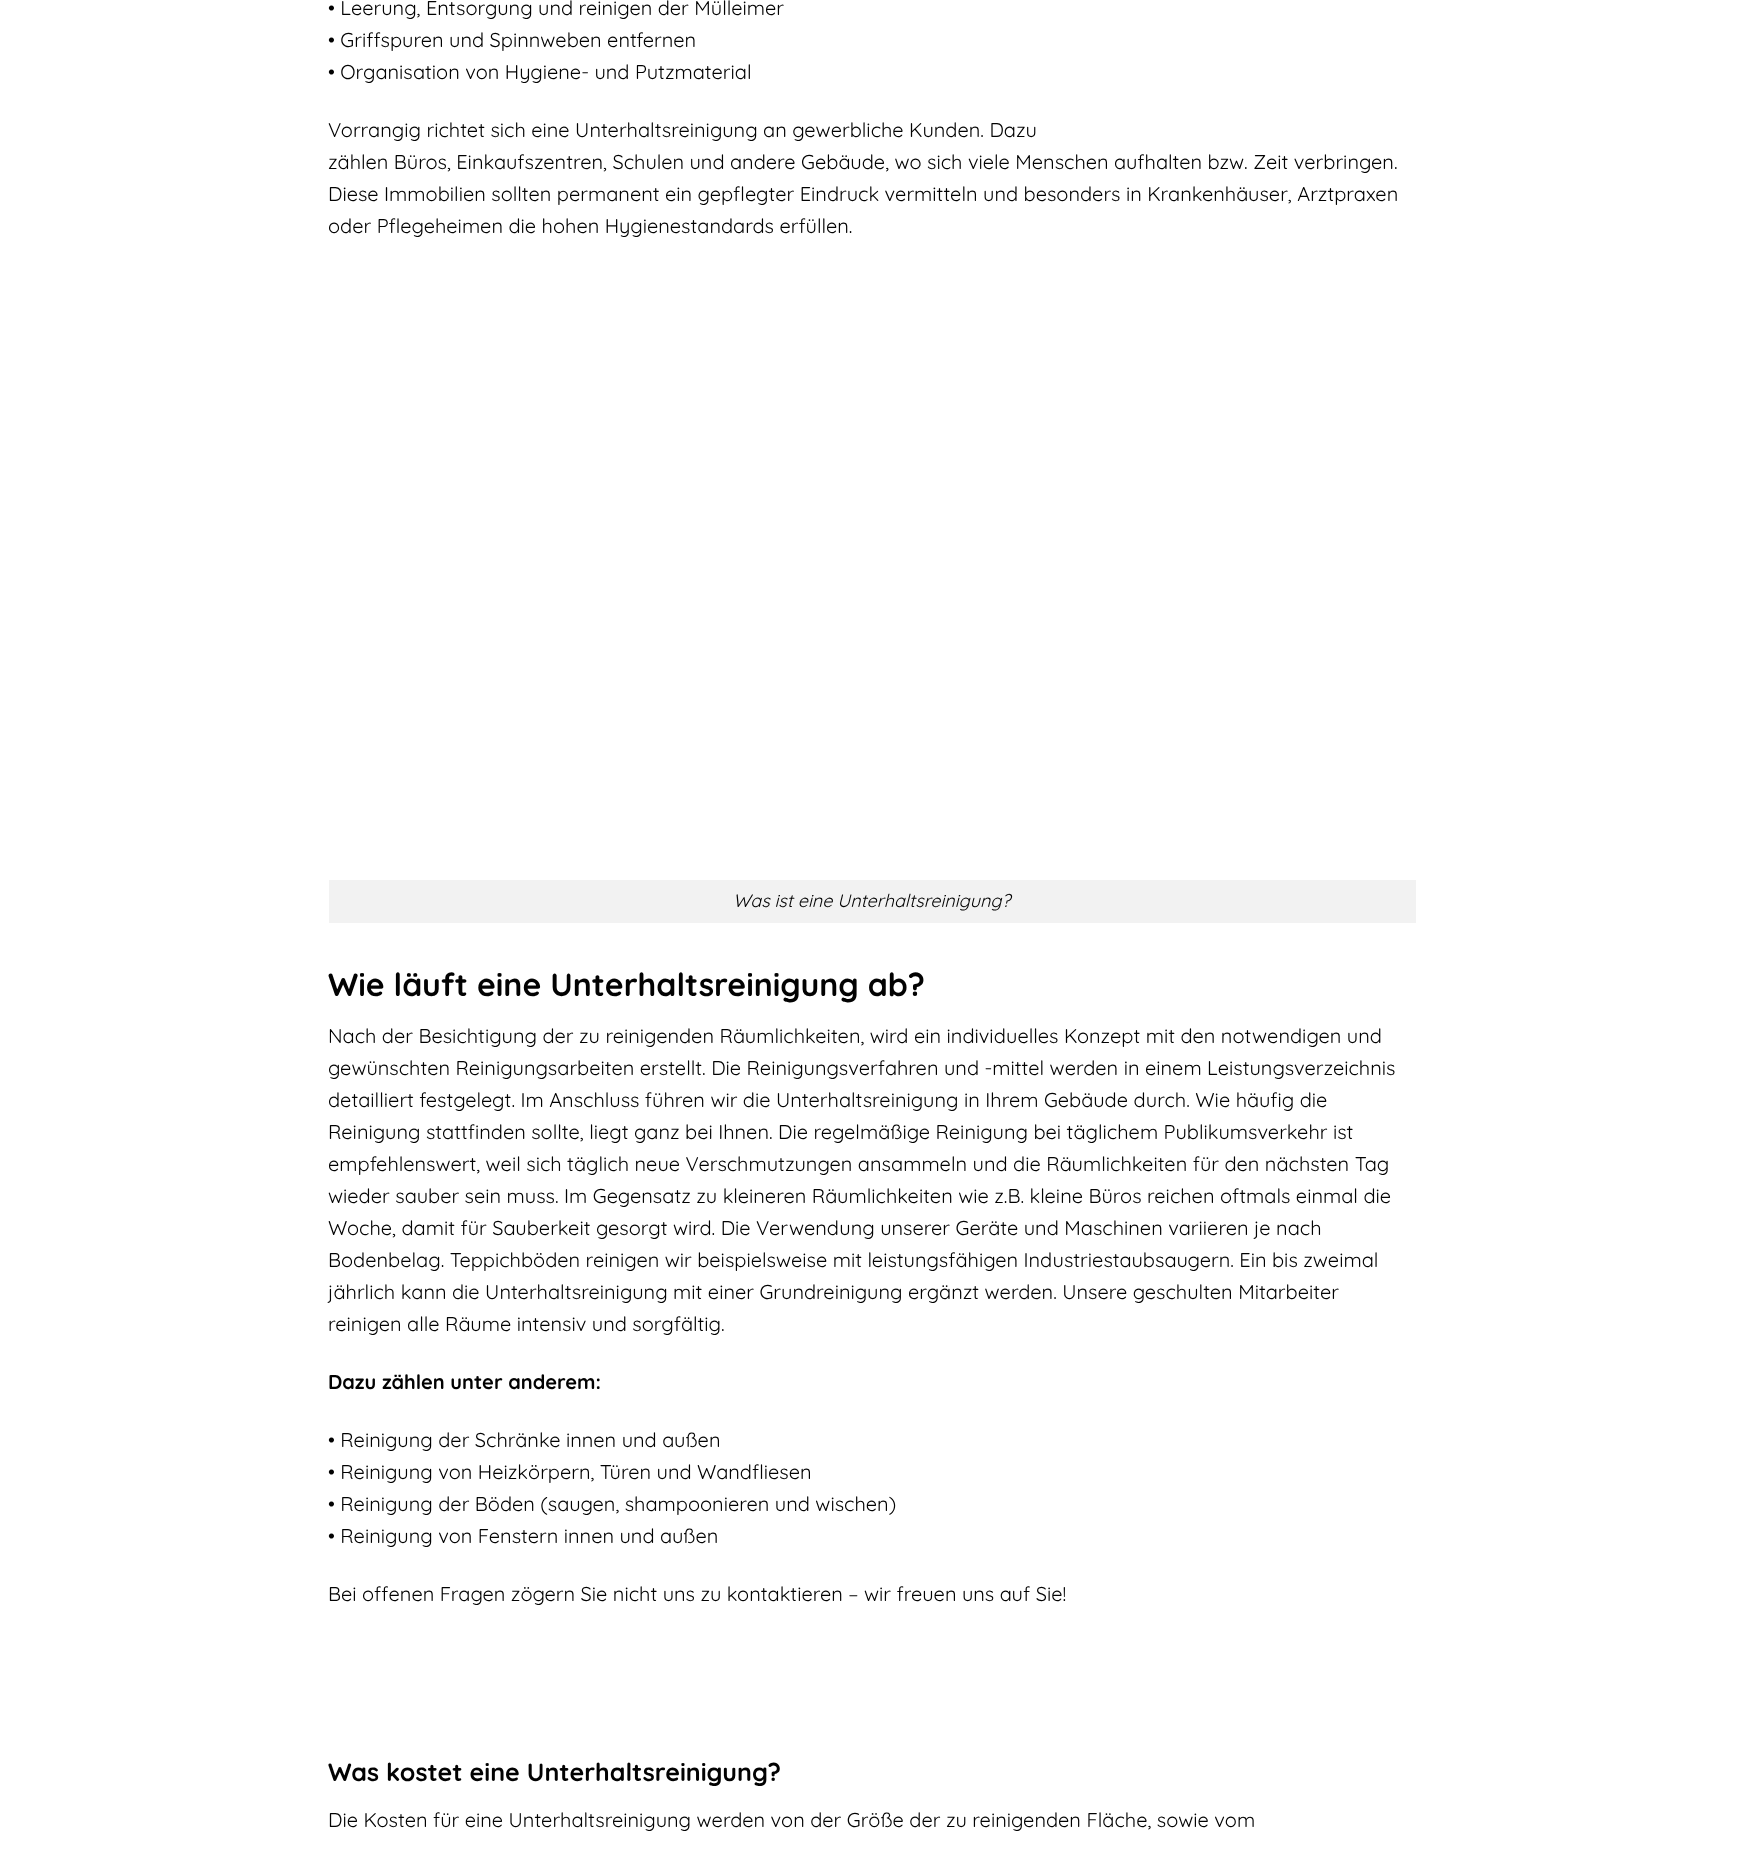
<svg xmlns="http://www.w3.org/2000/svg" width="1743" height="1855">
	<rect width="100%" height="100%" fill="#FFFFFF" />
	<g font-family="Quicksand" font-size="20" fill="#020202">
		<text x="328" y="15">• Leerung, Entsorgung und reinigen der Mülleimer</text>
		<text x="328" y="47">• Griffspuren und Spinnweben entfernen</text>
		<text x="328" y="79">• Organisation von Hygiene- und Putzmaterial</text>
		<text x="328" y="137">Vorrangig richtet sich eine Unterhaltsreinigung an gewerbliche Kunden. Dazu</text>
		<text x="328" y="169">zählen Büros, Einkaufszentren, Schulen und andere Gebäude, wo sich viele Menschen aufhalten bzw. Zeit verbringen.</text>
		<text x="328" y="201">Diese Immobilien sollten permanent ein gepflegter Eindruck vermitteln und besonders in Krankenhäuser, Arztpraxen</text>
		<text x="328" y="233">oder Pflegeheimen die hohen Hygienestandards erfüllen.</text>
	</g>
	<rect x="329" y="880" width="1087" height="43" fill="#F2F2F2" />
	<text x="733" y="907" font-family="Quicksand" font-size="18" font-style="italic" fill="#020202">Was ist eine Unterhaltsreinigung?</text>
	<text x="328" y="996" font-family="Quicksand" font-size="32" font-weight="700" fill="#020202">Wie läuft eine Unterhaltsreinigung ab?</text>
	<g font-family="Quicksand" font-size="20" fill="#020202">
		<text x="328" y="1043">Nach der Besichtigung der zu reinigenden Räumlichkeiten, wird ein individuelles Konzept mit den notwendigen und</text>
		<text x="328" y="1075">gewünschten Reinigungsarbeiten erstellt. Die Reinigungsverfahren und -mittel werden in einem Leistungsverzeichnis</text>
		<text x="328" y="1107">detailliert festgelegt. Im Anschluss führen wir die Unterhaltsreinigung in Ihrem Gebäude durch. Wie häufig die</text>
		<text x="328" y="1139">Reinigung stattfinden sollte, liegt ganz bei Ihnen. Die regelmäßige Reinigung bei täglichem Publikumsverkehr ist</text>
		<text x="328" y="1171">empfehlenswert, weil sich täglich neue Verschmutzungen ansammeln und die Räumlichkeiten für den nächsten Tag</text>
		<text x="328" y="1203">wieder sauber sein muss. Im Gegensatz zu kleineren Räumlichkeiten wie z.B. kleine Büros reichen oftmals einmal die</text>
		<text x="328" y="1235">Woche, damit für Sauberkeit gesorgt wird. Die Verwendung unserer Geräte und Maschinen variieren je nach</text>
		<text x="328" y="1267">Bodenbelag. Teppichböden reinigen wir beispielsweise mit leistungsfähigen Industriestaubsaugern. Ein bis zweimal</text>
		<text x="328" y="1299">jährlich kann die Unterhaltsreinigung mit einer Grundreinigung ergänzt werden. Unsere geschulten Mitarbeiter</text>
		<text x="328" y="1331">reinigen alle Räume intensiv und sorgfältig.</text>
	</g>
	<text x="328" y="1389" font-family="Quicksand" font-size="20" font-weight="700" fill="#020202">Dazu zählen unter anderem:</text>
	<g font-family="Quicksand" font-size="20" fill="#020202">
		<text x="328" y="1447">• Reinigung der Schränke innen und außen</text>
		<text x="328" y="1479">• Reinigung von Heizkörpern, Türen und Wandfliesen</text>
		<text x="328" y="1511">• Reinigung der Böden (saugen, shampoonieren und wischen)</text>
		<text x="328" y="1543">• Reinigung von Fenstern innen und außen</text>
		<text x="328" y="1601">Bei offenen Fragen zögern Sie nicht uns zu kontaktieren – wir freuen uns auf Sie!</text>
	</g>
	<text x="328" y="1781" font-family="Quicksand" font-size="25" font-weight="700" fill="#020202">Was kostet eine Unterhaltsreinigung?</text>
	<text x="328" y="1827" font-family="Quicksand" font-size="20" fill="#020202">Die Kosten für eine Unterhaltsreinigung werden von der Größe der zu reinigenden Fläche, sowie vom</text>
</svg>
